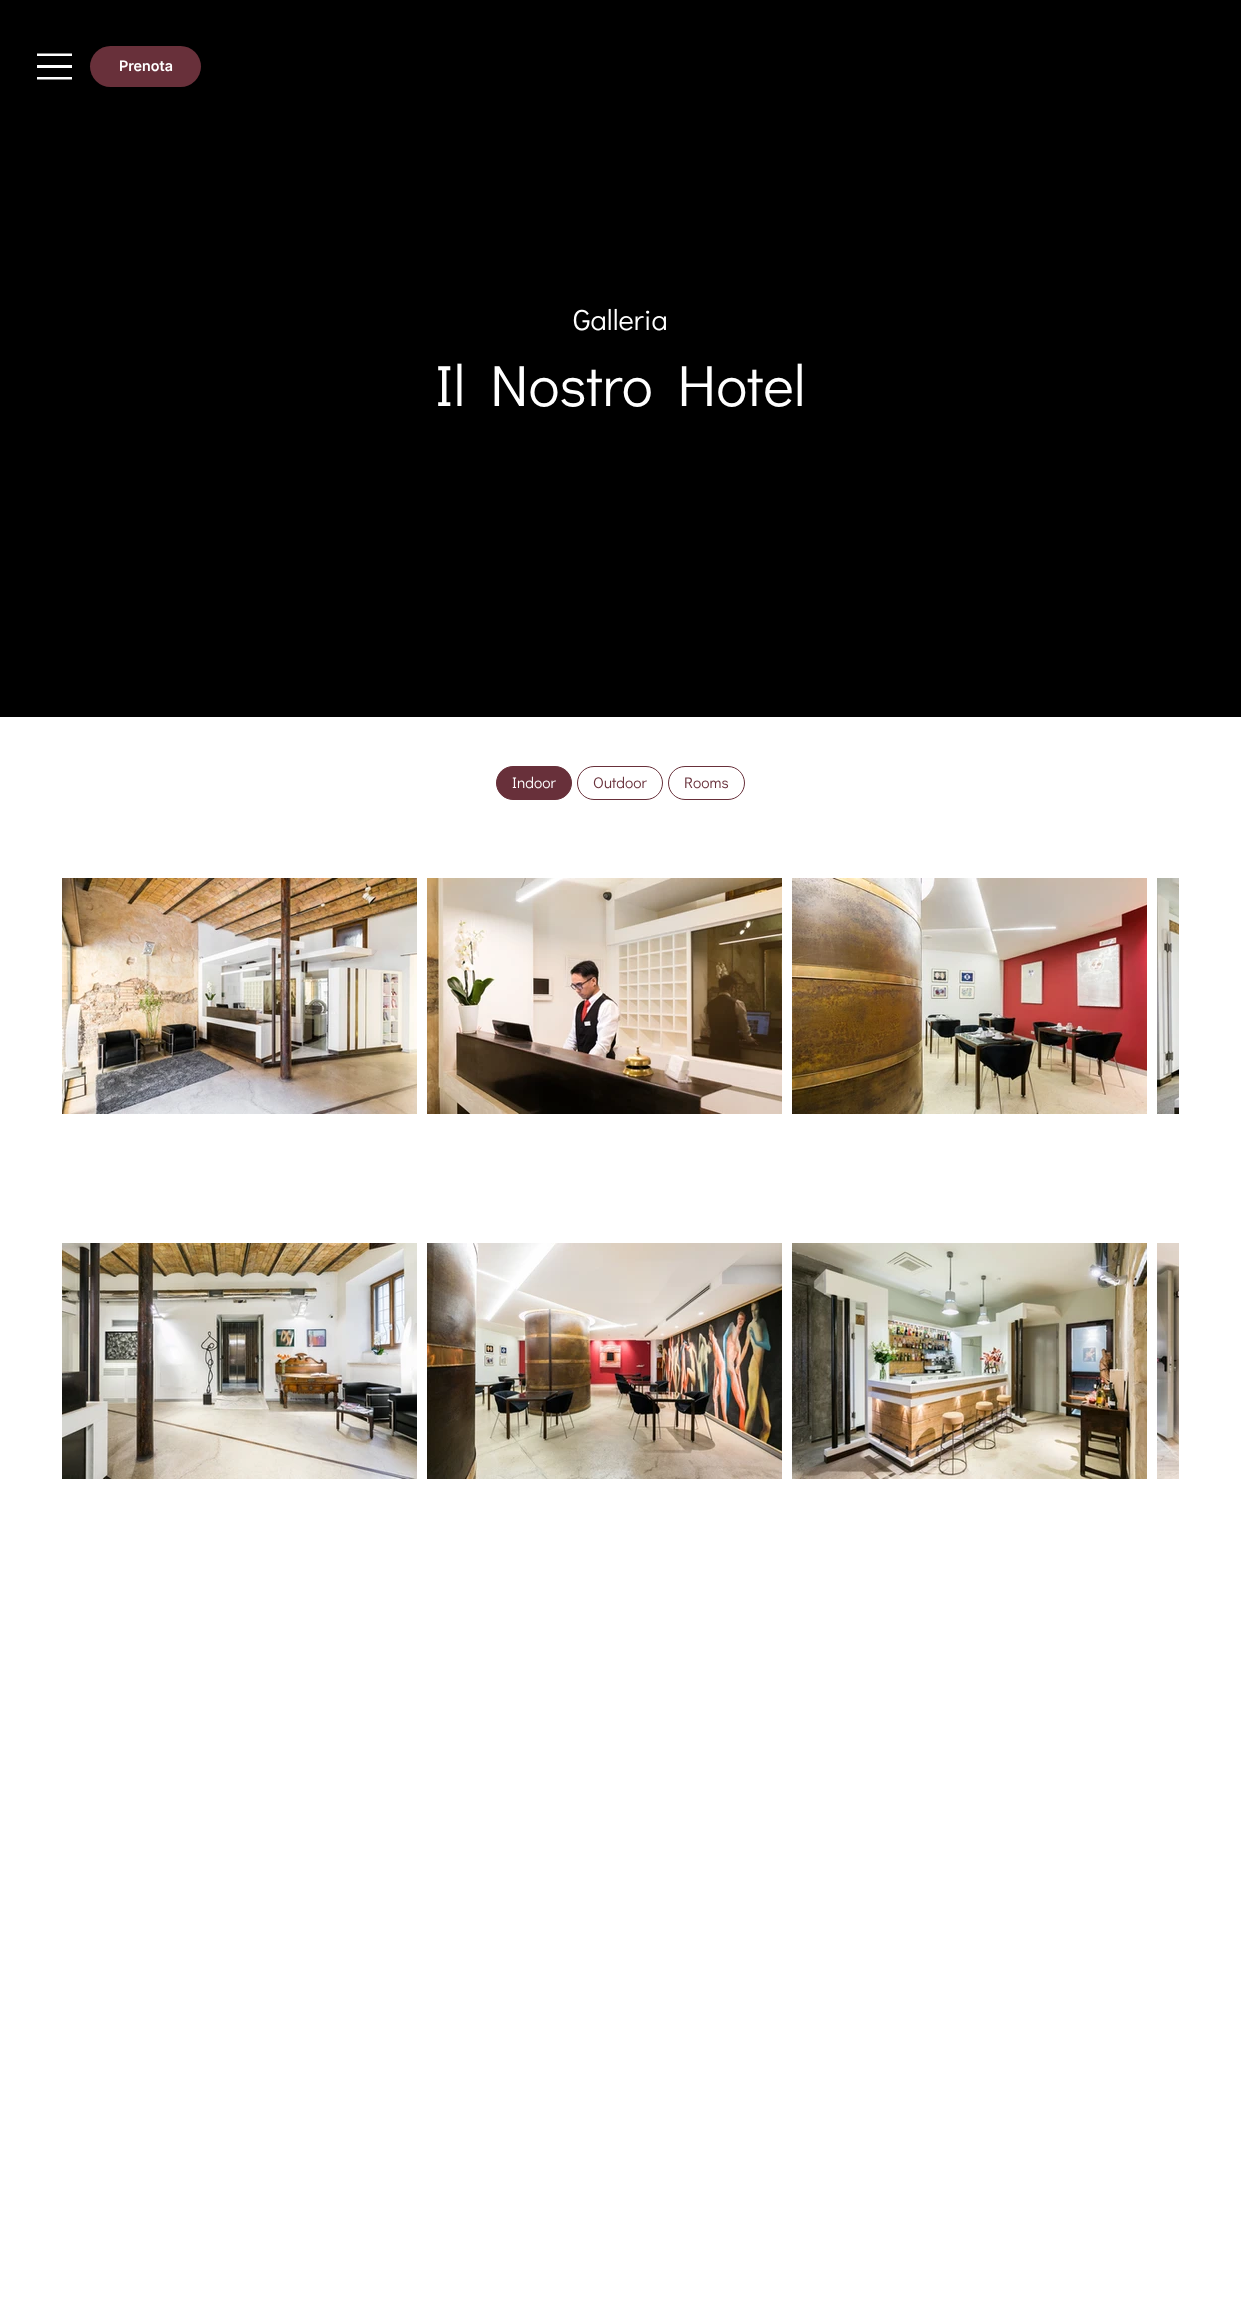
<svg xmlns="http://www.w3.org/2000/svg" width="1241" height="2321">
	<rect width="100%" height="100%" fill="#FFFFFF" />
	<rect x="0" y="0" width="1241" height="717" fill="#000000" />
	<path d="M72 56H37V53.5H72ZM72 68H37V65H72ZM72 79.5H37V77H72Z" fill="#FFFFFF" fill-rule="evenodd" />
	<rect x="90" y="46" width="111" height="41" rx="20.5" fill="#68303A" />
	<text x="119" y="71" font-family="Inter" font-size="14.5" font-weight="600" fill="#FFFFFF">Prenota</text>
	<text x="573" y="330" font-family="Didact Gothic" font-size="29" fill="#FFFFFF">Galleria</text>
	<text x="435" y="406" font-family="Didact Gothic" font-size="58.25" fill="#FFFFFF">Il Nostro Hotel</text>
	<rect x="496.5" y="766.5" width="75" height="33" rx="16.5" fill="#68303A" stroke="#68303A" />
	<text x="512" y="788" font-family="Didact Gothic" font-size="15.5" fill="#FFFFFF">Indoor</text>
	<rect x="577.5" y="766.5" width="85" height="33" rx="16.5" fill="none" stroke="#68303A" />
	<text x="593" y="788" font-family="Didact Gothic" font-size="15.5" fill="#68303A">Outdoor</text>
	<rect x="668.5" y="766.5" width="76" height="33" rx="16.5" fill="none" stroke="#68303A" />
	<text x="684" y="788" font-family="Didact Gothic" font-size="15.5" fill="#68303A">Rooms</text>
	<image x="62" y="878" width="355" height="236" href="assets/img1.png" />
	<image x="427" y="878" width="355" height="236" href="assets/img2.png" />
	<image x="792" y="878" width="355" height="236" href="assets/img3.png" />
	<image x="1157" y="878" width="22" height="236" href="assets/img4.png" />
	<image x="62" y="1243" width="355" height="236" href="assets/img5.png" />
	<image x="427" y="1243" width="355" height="236" href="assets/img6.png" />
	<image x="792" y="1243" width="355" height="236" href="assets/img7.png" />
	<image x="1157" y="1243" width="22" height="236" href="assets/img8.png" />
</svg>
